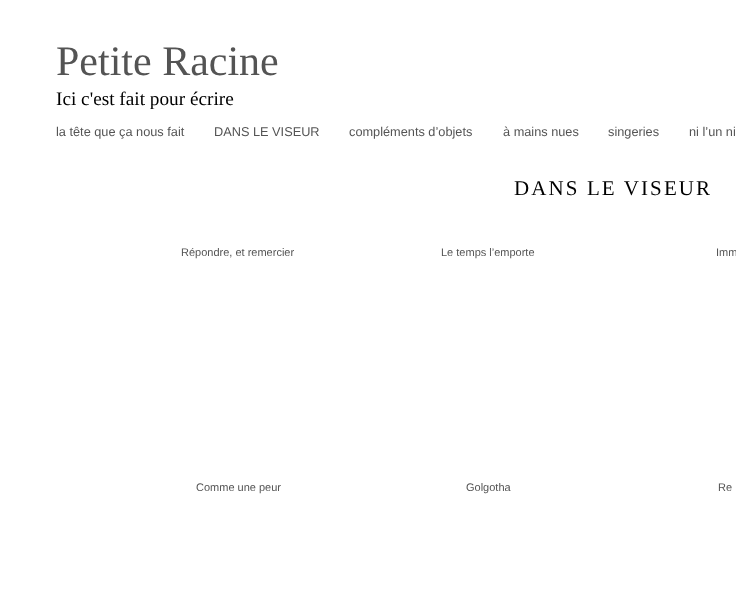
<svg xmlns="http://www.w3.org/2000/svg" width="736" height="597">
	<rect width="100%" height="100%" fill="#FFFFFF" />
	<text x="56" y="75" font-family="Liberation Serif" font-size="42" fill="#545454">Petite Racine</text>
	<text x="56" y="105" font-family="Liberation Serif" font-size="19.25" fill="#000000">Ici c'est fait pour écrire</text>
	<g font-family="Liberation Sans" font-size="12.75" fill="#545454">
		<text x="56" y="136">la tête que ça nous fait</text>
		<text x="214" y="136">DANS LE VISEUR</text>
		<text x="349" y="136">compléments d’objets</text>
		<text x="503" y="136">à mains nues</text>
		<text x="608" y="136">singeries</text>
		<text x="689" y="136">ni l’un ni</text>
	</g>
	<text x="514" y="195" font-family="Liberation Serif" font-size="21" letter-spacing="2.1" fill="#000000">DANS LE VISEUR</text>
	<g font-family="Liberation Sans" font-size="11" fill="#545454">
		<text x="181" y="256">Répondre, et remercier</text>
		<text x="441" y="256">Le temps l’emporte</text>
		<text x="716" y="256">Imm</text>
		<text x="196" y="491">Comme une peur</text>
		<text x="466" y="491">Golgotha</text>
		<text x="718" y="491">Re</text>
	</g>
</svg>
